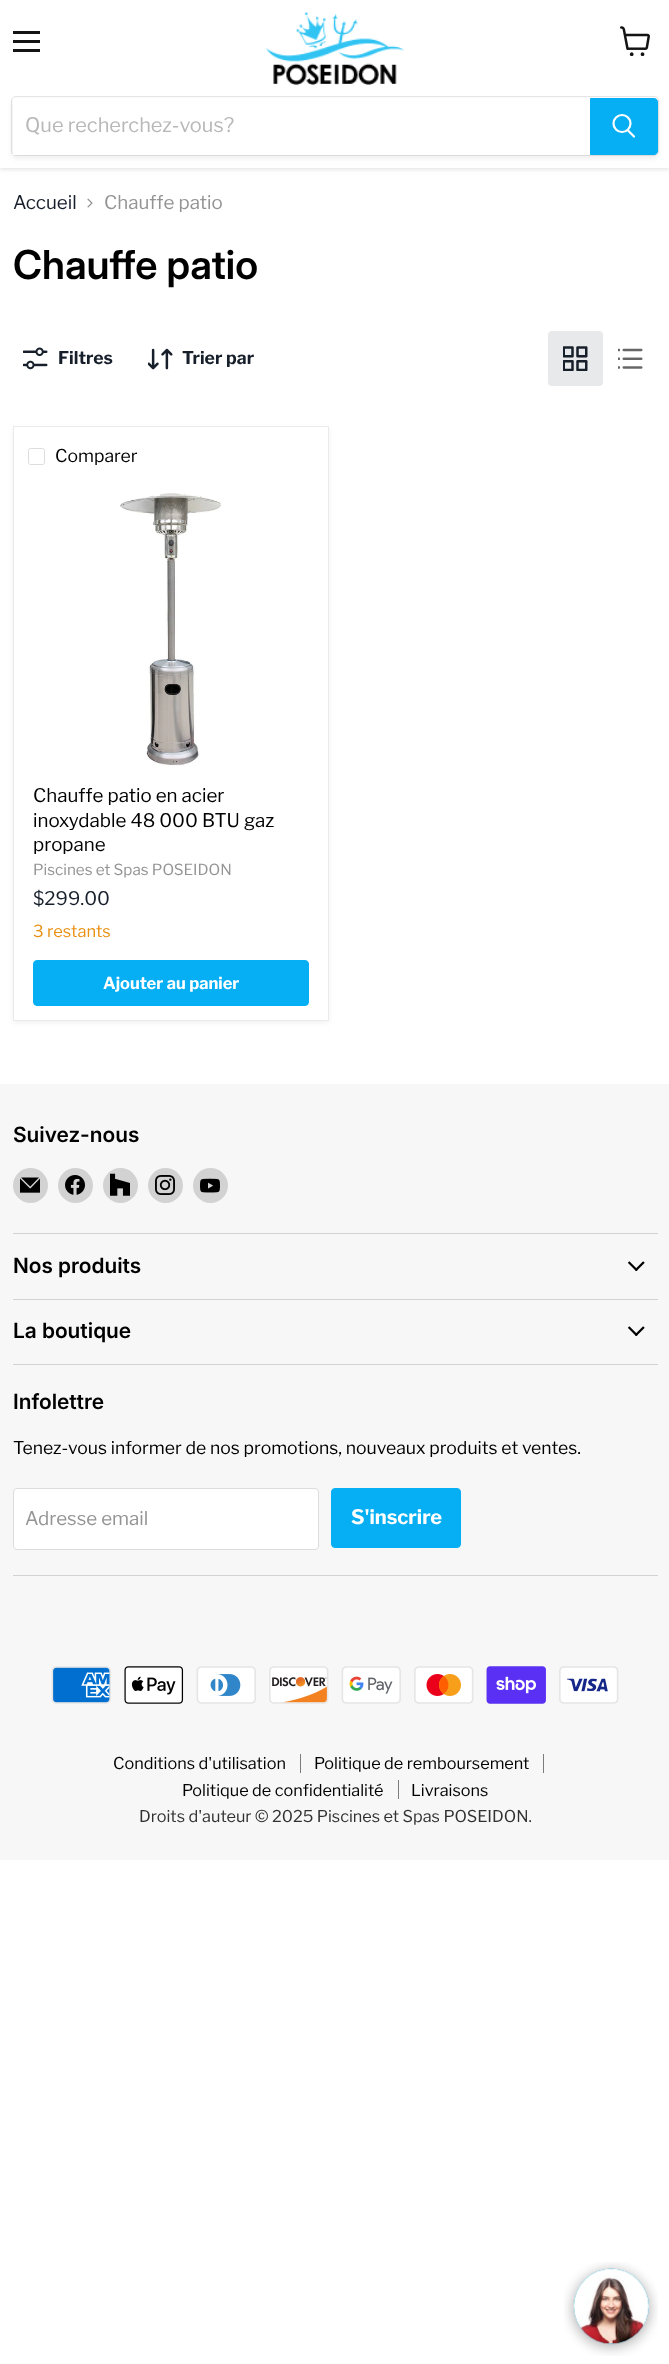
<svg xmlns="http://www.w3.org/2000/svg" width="669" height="2364">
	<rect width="100%" height="100%" fill="#FFFFFF" />
	<rect x="0" y="1" width="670" height="168" fill="#808080" fill-opacity="0.25" filter="blur(2.5px)" />
	<rect x="0" y="0" width="669" height="168" fill="#FFFFFF" />
	<rect x="13" y="31" width="27" height="3" fill="#141414" />
	<rect x="13" y="40" width="27" height="3" fill="#141414" />
	<rect x="13" y="49" width="27" height="3" fill="#141414" />
	<image x="620" y="26" width="30" height="30" href="assets/img1.png" />
	<image x="266" y="12" width="138" height="73" href="assets/img2.png" />
	<rect x="11" y="99" width="648" height="60" rx="5" fill="#808080" fill-opacity="0.11" filter="blur(2px)" />
	<rect x="11.5" y="96.5" width="647" height="59" rx="4.5" fill="none" stroke="#808080" stroke-opacity="0.2" />
	<rect x="13" y="98" width="577" height="57" fill="#FFFFFF" />
	<text x="25" y="132" font-family="Libre Franklin" font-size="20" fill="#B8B8B8">Que recherchez-vous?</text>
	<path d="M590.5 98.5H654C656 98.5 657.5 100 657.5 102V151C657.5 153 656 154.5 654 154.5H590.5Z" fill="#06AFF3" stroke="#06AFF3" />
	<path d="M634 136.5L628 130.5" fill="none" stroke="#FFFFFF" stroke-width="2.2" stroke-linecap="round" />
	<circle cx="622" cy="123.5" r="8.5" fill="none" stroke="#FFFFFF" stroke-width="2.2" />
	<text x="13" y="209" font-family="Libre Franklin" font-size="18.75" fill="#171F2B">Accueil</text>
	<image x="87" y="198" width="6" height="10" href="assets/img3.png" />
	<text x="104" y="209" font-family="Libre Franklin" font-size="18.75" fill="#949494">Chauffe patio</text>
	<text x="13" y="279" font-family="Inter" font-size="40" font-weight="600" fill="#000000">Chauffe patio</text>
	<image x="23" y="347" width="25" height="23" href="assets/img4.png" />
	<text x="58" y="364" font-family="Libre Franklin" font-size="17.6" font-weight="700" fill="#171F2B">Filtres</text>
	<image x="148" y="348" width="25" height="22" href="assets/img5.png" />
	<text x="182" y="364" font-family="Libre Franklin" font-size="17.6" font-weight="700" fill="#171F2B">Trier par</text>
	<rect x="548" y="331" width="55" height="55" rx="4" fill="#E8E9EA" />
	<image x="563" y="346" width="25" height="25" href="assets/img6.png" />
	<image x="618" y="348" width="25" height="21" href="assets/img7.png" />
	<rect x="13" y="428" width="316" height="595" fill="#808080" fill-opacity="0.11" filter="blur(2.5px)" />
	<rect x="13.5" y="426.5" width="315" height="594" fill="#FFFFFF" stroke="#EBEBEB" />
	<rect x="28.5" y="448.5" width="16" height="16" rx="2" fill="none" stroke="#DDDDDD" />
	<text x="55" y="462" font-family="Libre Franklin" font-size="17.6" fill="#000000">Comparer</text>
	<image x="120" y="493" width="102" height="273" href="assets/img8.png" />
	<g font-family="Libre Franklin" font-size="18.75" fill="#000000">
		<text x="33" y="802">Chauffe patio en acier</text>
		<text x="33" y="827">inoxydable 48 000 BTU gaz</text>
		<text x="33" y="851">propane</text>
	</g>
	<text x="33" y="875" font-family="Libre Franklin" font-size="15.25" fill="#949494">Piscines et Spas POSEIDON</text>
	<text x="33" y="905" font-family="Libre Franklin" font-size="18.75" fill="#171F2B">$299.00</text>
	<text x="33" y="937" font-family="Libre Franklin" font-size="16.5" fill="#E99114">3 restants</text>
	<rect x="33.5" y="960.5" width="275" height="45" rx="3.5" fill="#06AFF3" stroke="#06AFF3" />
	<text x="103" y="989" font-family="Libre Franklin" font-size="16.5" font-weight="700" fill="#FFFFFF">Ajouter au panier</text>
	<rect x="0" y="1084" width="669" height="776" fill="#F7F7F7" />
	<rect x="13" y="1233" width="645" height="1" fill="#D2D2D2" />
	<text x="13" y="1142" font-family="'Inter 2'" font-size="21" font-weight="600" fill="#000000">Suivez-nous</text>
	<circle cx="30.5" cy="1185.5" r="17.5" fill="#D2D2D2" />
	<image x="20" y="1177" width="20" height="16" href="assets/img9.png" />
	<circle cx="75.5" cy="1185.5" r="17.5" fill="#D2D2D2" />
	<image x="65" y="1175" width="20" height="20" href="assets/img10.png" />
	<circle cx="120.5" cy="1185.5" r="17.5" fill="#D2D2D2" />
	<image x="110" y="1173" width="20" height="23" href="assets/img11.png" />
	<circle cx="165.5" cy="1185.5" r="17.5" fill="#D2D2D2" />
	<image x="155" y="1175" width="20" height="20" href="assets/img12.png" />
	<circle cx="210.5" cy="1185.5" r="17.5" fill="#D2D2D2" />
	<image x="200" y="1178" width="20" height="15" href="assets/img13.png" />
	<rect x="13" y="1299" width="645" height="1" fill="#D2D2D2" />
	<text x="13" y="1273" font-family="'Inter 2'" font-size="21" font-weight="600" fill="#000000">Nos produits</text>
	<image x="628" y="1261" width="17" height="10" href="assets/img14.png" />
	<rect x="13" y="1364" width="645" height="1" fill="#D2D2D2" />
	<text x="13" y="1338" font-family="'Inter 2'" font-size="21" font-weight="600" fill="#000000">La boutique</text>
	<image x="628" y="1326" width="17" height="10" href="assets/img14.png" />
	<rect x="13" y="1575" width="645" height="1" fill="#D2D2D2" />
	<text x="13" y="1409" font-family="'Inter 2'" font-size="21" font-weight="600" fill="#000000">Infolettre</text>
	<text x="13" y="1454" font-family="Libre Franklin" font-size="17.6" fill="#000000">Tenez-vous informer de nos promotions, nouveaux produits et ventes.</text>
	<rect x="13.5" y="1488.5" width="305" height="61" rx="3.5" fill="#FFFFFF" stroke="#DDDDDD" />
	<text x="25" y="1525" font-family="Libre Franklin" font-size="18.75" fill="#949494">Adresse email</text>
	<rect x="331.5" y="1488.5" width="129" height="59" rx="3.5" fill="#06AFF3" stroke="#06AFF3" />
	<text x="351" y="1524" font-family="Libre Franklin" font-size="20" font-weight="700" fill="#FFFFFF">S'inscrire</text>
	<image x="51" y="1666" width="60" height="38" href="assets/img15.png" />
	<image x="124" y="1666" width="60" height="38" href="assets/img16.png" />
	<image x="196" y="1666" width="60" height="38" href="assets/img17.png" />
	<image x="269" y="1666" width="60" height="38" href="assets/img18.png" />
	<image x="341" y="1666" width="60" height="38" href="assets/img19.png" />
	<image x="414" y="1666" width="60" height="38" href="assets/img20.png" />
	<image x="486" y="1666" width="60" height="38" href="assets/img21.png" />
	<image x="559" y="1666" width="60" height="38" href="assets/img22.png" />
	<rect x="300" y="1754" width="1" height="19" fill="#7C7C7C" />
	<text x="113" y="1769" font-family="Libre Franklin" font-size="16.25" fill="#000000">Conditions d'utilisation</text>
	<rect x="543" y="1754" width="1" height="19" fill="#7C7C7C" />
	<text x="314" y="1769" font-family="Libre Franklin" font-size="16.25" fill="#000000">Politique de remboursement</text>
	<rect x="398" y="1780" width="1" height="19" fill="#7C7C7C" />
	<g font-family="Libre Franklin" font-size="16.25" fill="#000000">
		<text x="182" y="1796">Politique de confidentialité</text>
		<text x="411" y="1796">Livraisons</text>
	</g>
	<text x="139" y="1822" font-family="Libre Franklin" font-size="16.25" fill="#313131">Droits d'auteur © 2025 Piscines et Spas POSEIDON.</text>
	<image x="564" y="2262" width="94" height="94" href="assets/img23.png" />
</svg>
